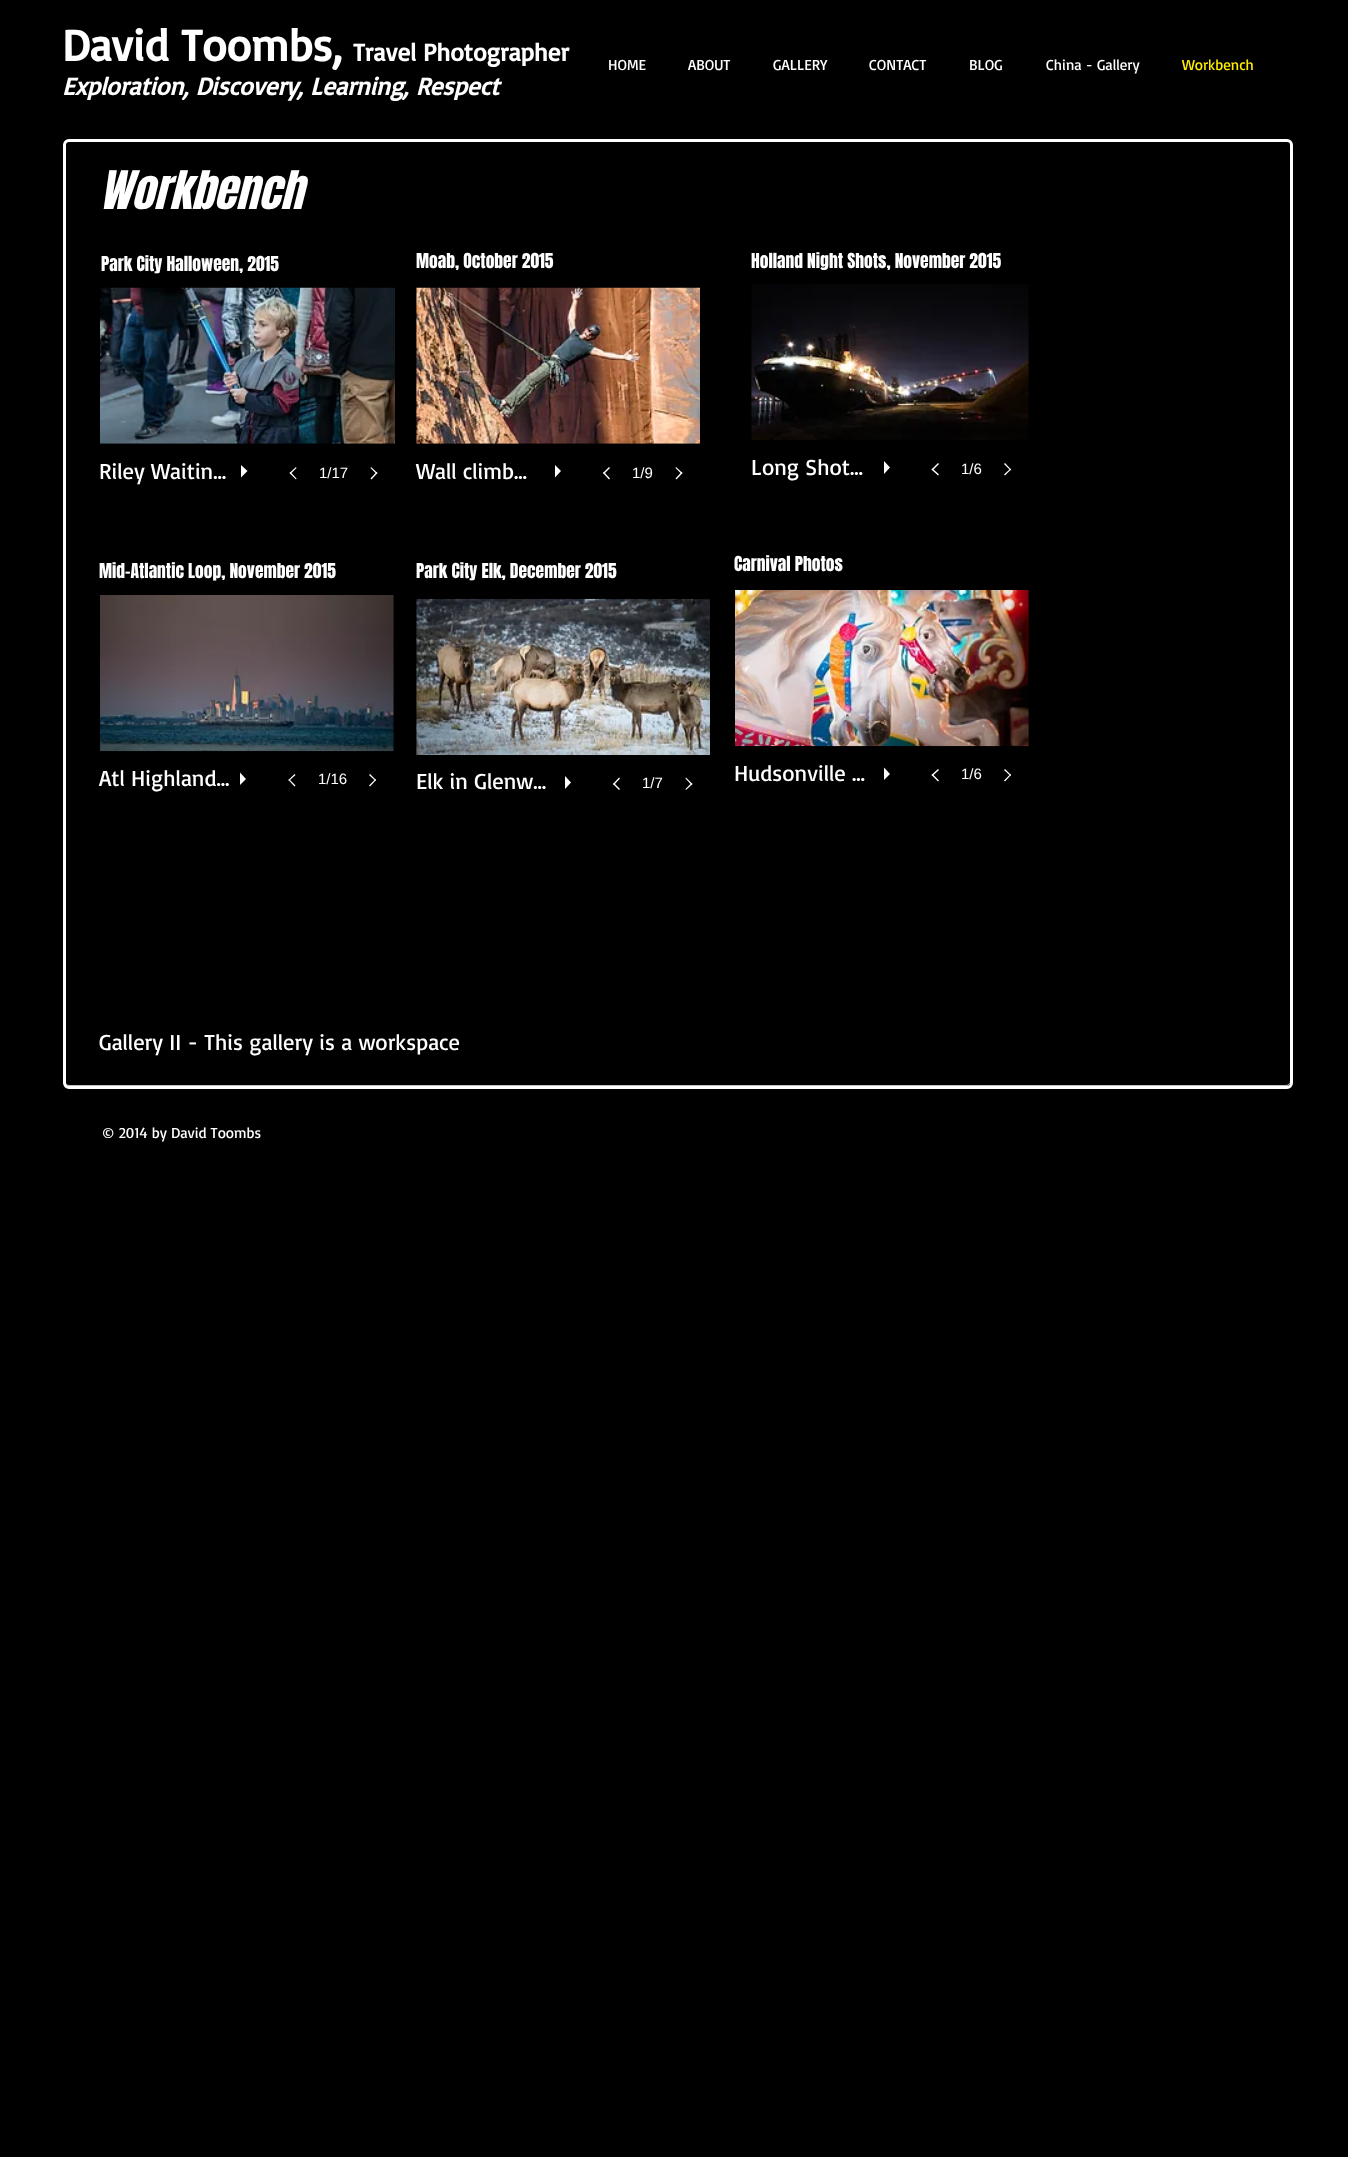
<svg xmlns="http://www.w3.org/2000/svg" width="1348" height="2157">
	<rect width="100%" height="100%" fill="#000000" />
	<text x="62" y="61" font-family="Basic" font-size="45" font-weight="700" fill="#FFFFFF">David Toombs,</text>
	<text x="353" y="61" font-family="Basic" font-size="25" font-weight="700" fill="#FFFFFF">Travel Photographer</text>
	<text x="62" y="95" font-family="Basic" font-size="25" font-weight="700" font-style="italic" fill="#FFFFFF">Exploration, Discovery, Learning, Respect</text>
	<g font-family="Basic" font-size="15" fill="#FFFFFF">
		<text x="608" y="70">HOME</text>
		<text x="688" y="70">ABOUT</text>
		<text x="773" y="70">GALLERY</text>
		<text x="869" y="70">CONTACT</text>
		<text x="969" y="70">BLOG</text>
		<text x="1046" y="70">China - Gallery</text>
	</g>
	<text x="1182" y="70" font-family="Basic" font-size="15" fill="#FFEE00">Workbench</text>
	<path d="M65 1081C65 1084 66 1086 69 1086H1286C1289 1086 1290 1084 1290 1081C1290 1083 1288 1085 1286 1085H69C67 1085 65 1083 65 1081Z" fill="#BFBFBF" />
	<rect x="64.5" y="140.5" width="1227" height="947" rx="4.5" fill="none" stroke="#FFFFFF" stroke-width="3" />
	<text x="99" y="209" font-family="Anton" font-size="45" font-style="italic" fill="#FFFFFF">Workbench</text>
	<g font-family="Anton" font-size="17.5" fill="#FFFFFF">
		<text x="101" y="271">Park City Halloween, 2015</text>
		<text x="416" y="268">Moab, October 2015</text>
		<text x="751" y="268">Holland Night Shots, November 2015</text>
	</g>
	<image x="100" y="287" width="295" height="157" href="assets/img1.png" />
	<text x="99" y="479" font-family="Basic" font-size="22.5" fill="#FFFFFF">Riley Waitin…</text>
	<path d="M241 477.5V465L247.5 471Z" fill="#FFFFFF" />
	<path d="M289.5 473L296 467L296.5 468L290.5 474Z" fill="#FFFFFF" />
	<path d="M289.5 473L290.5 472L296.5 478.5L296 479.5Z" fill="#FFFFFF" />
	<text x="319" y="478" font-family="Liberation Sans" font-size="15" fill="#FFFFFF">1/17</text>
	<path d="M370.5 468L371 467L377.5 473L376.5 474Z" fill="#FFFFFF" />
	<path d="M370.5 478.5L376.5 472L377.5 473L371.5 479.5Z" fill="#FFFFFF" />
	<image x="416" y="287" width="284" height="157" href="assets/img2.png" />
	<text x="416" y="479" font-family="Basic" font-size="22.5" fill="#FFFFFF">Wall climb…</text>
	<path d="M555 477.5V465L561 471Z" fill="#FFFFFF" />
	<path d="M603 473L609 467L610 468L604 474Z" fill="#FFFFFF" />
	<path d="M603 473L604 472L610 478.5L609 479.5Z" fill="#FFFFFF" />
	<text x="632" y="478" font-family="Liberation Sans" font-size="15" fill="#FFFFFF">1/9</text>
	<path d="M675.5 468L676 467L682.5 473L681.5 474Z" fill="#FFFFFF" />
	<path d="M675.5 478.5L681.5 472L682.5 473L676.5 479.5Z" fill="#FFFFFF" />
	<image x="751" y="284" width="278" height="156" href="assets/img3.png" />
	<text x="751" y="475" font-family="Basic" font-size="22.5" fill="#FFFFFF">Long Shot…</text>
	<path d="M884 474V461L890 467.5Z" fill="#FFFFFF" />
	<path d="M931.5 469.5L938 463L939 464L932.5 470.5Z" fill="#FFFFFF" />
	<path d="M931.5 469.5L932.5 468.5L939 474.5L938 475.5Z" fill="#FFFFFF" />
	<text x="961" y="474" font-family="Liberation Sans" font-size="15" fill="#FFFFFF">1/6</text>
	<path d="M1004 464L1005 463L1011 469.5L1010.5 470.5Z" fill="#FFFFFF" />
	<path d="M1004 474.5L1010.5 468.5L1011 469.5L1005 475.5Z" fill="#FFFFFF" />
	<g font-family="Anton" font-size="17.5" fill="#FFFFFF">
		<text x="99" y="578">Mid-Atlantic Loop, November 2015</text>
		<text x="416" y="578">Park City Elk, December 2015</text>
		<text x="734" y="571">Carnival Photos</text>
	</g>
	<image x="100" y="595" width="294" height="157" href="assets/img4.png" />
	<text x="99" y="786" font-family="Basic" font-size="22.5" fill="#FFFFFF">Atl Highland…</text>
	<path d="M240 785V772.5L246 779Z" fill="#FFFFFF" />
	<path d="M288.5 780L294.5 774L295.5 775L289 781Z" fill="#FFFFFF" />
	<path d="M288.5 780L289 779L295.5 785.5L294.5 786.5Z" fill="#FFFFFF" />
	<text x="318" y="784" font-family="Liberation Sans" font-size="15" fill="#FFFFFF">1/16</text>
	<path d="M369 775L370 774L376 780L375.5 781Z" fill="#FFFFFF" />
	<path d="M369 785.5L375.5 779L376 780L370 786.5Z" fill="#FFFFFF" />
	<image x="416" y="598" width="294" height="157" href="assets/img5.png" />
	<text x="416" y="789" font-family="Basic" font-size="22.5" fill="#FFFFFF">Elk in Glenw…</text>
	<path d="M565 789V776L571 782.5Z" fill="#FFFFFF" />
	<path d="M613 784L619 777.5L620 778.5L614 785Z" fill="#FFFFFF" />
	<path d="M613 784L614 783L620 789L619 790Z" fill="#FFFFFF" />
	<text x="642" y="788" font-family="Liberation Sans" font-size="15" fill="#FFFFFF">1/7</text>
	<path d="M685.5 778.5L686 777.5L692.5 784L691.5 785Z" fill="#FFFFFF" />
	<path d="M685.5 789L691.5 783L692.5 784L686 790Z" fill="#FFFFFF" />
	<image x="735" y="590" width="294" height="157" href="assets/img6.png" />
	<text x="734" y="781" font-family="Basic" font-size="22.5" fill="#FFFFFF">Hudsonville …</text>
	<path d="M884 780V767.5L890 774Z" fill="#FFFFFF" />
	<path d="M931.5 775L938 769L939 770L932.5 776Z" fill="#FFFFFF" />
	<path d="M931.5 775L932.5 774L939 780.5L938 781.5Z" fill="#FFFFFF" />
	<text x="961" y="779" font-family="Liberation Sans" font-size="15" fill="#FFFFFF">1/6</text>
	<path d="M1004 770L1005 769L1011 775L1010.5 776Z" fill="#FFFFFF" />
	<path d="M1004 780.5L1010.5 774L1011 775L1005 781.5Z" fill="#FFFFFF" />
	<text x="99" y="1050" font-family="Basic" font-size="22.5" fill="#FFFFFF">Gallery II - This gallery is a workspace</text>
	<text x="102" y="1138" font-family="Basic" font-size="15" fill="#FFFFFF">© 2014 by David Toombs</text>
</svg>
